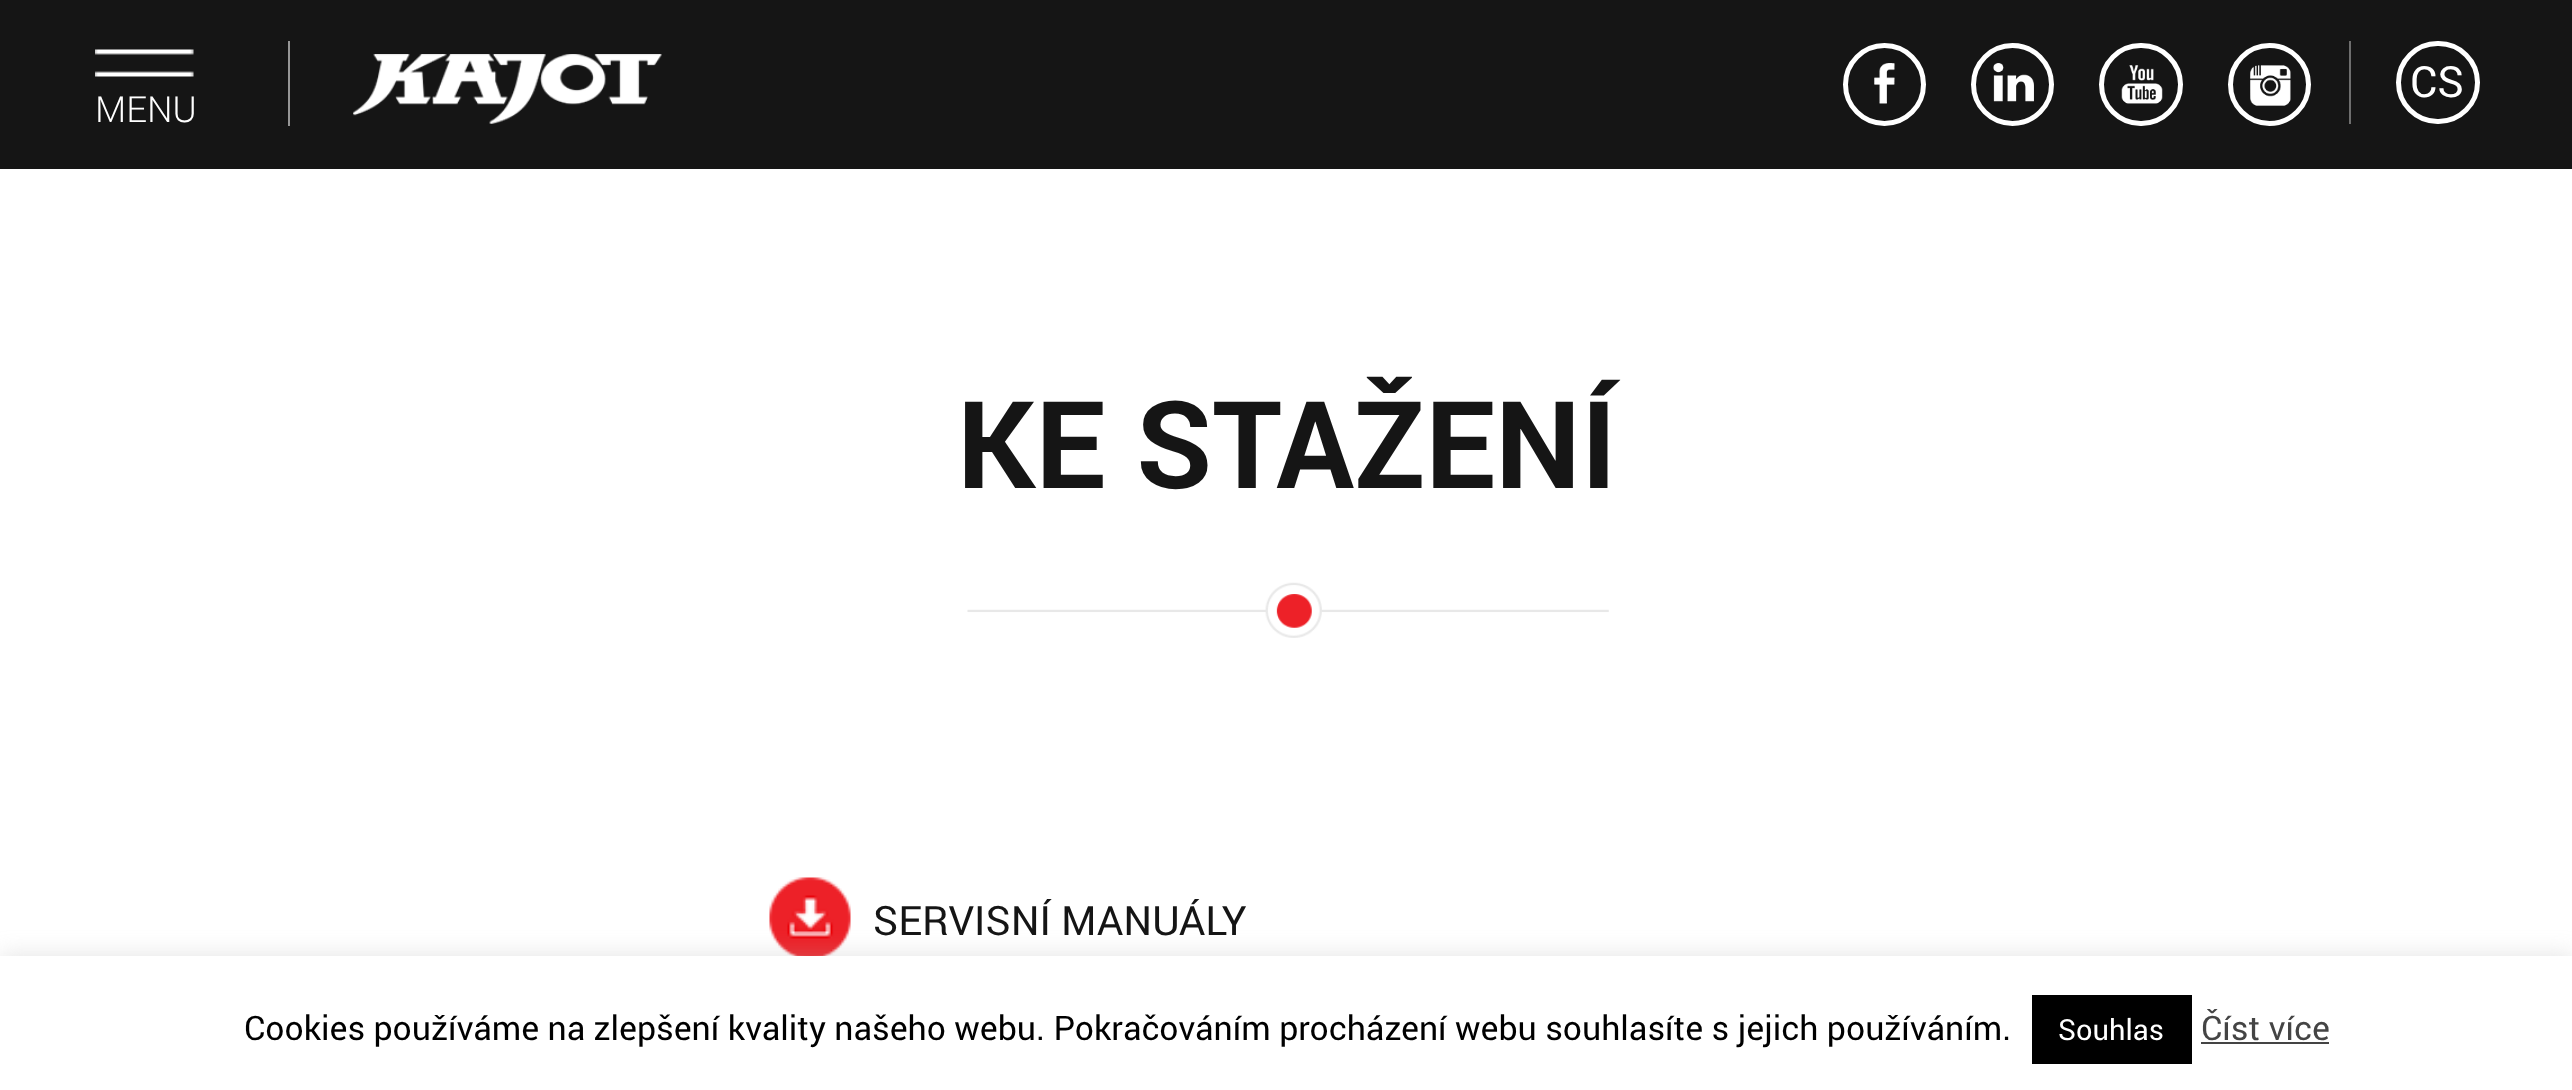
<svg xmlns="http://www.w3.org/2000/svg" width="2572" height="1090">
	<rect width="100%" height="100%" fill="#FFFFFF" />
	<rect x="0" y="0" width="2572" height="169" fill="#151515" />
	<rect x="288" y="41" width="2" height="85" fill="#969696" />
	<image x="353" y="54" width="309" height="70" href="assets/img1.png" />
	<circle cx="1884.5" cy="84.5" r="39" fill="none" stroke="#FFFFFF" stroke-width="5" />
	<image x="1874" y="63" width="21" height="41" href="assets/img2.png" />
	<circle cx="2012.5" cy="84.5" r="39" fill="none" stroke="#FFFFFF" stroke-width="5" />
	<image x="1993" y="63" width="41" height="39" href="assets/img3.png" />
	<rect x="2101.5" y="45.5" width="79" height="78" rx="39" fill="none" stroke="#FFFFFF" stroke-width="5" />
	<image x="2121" y="65" width="42" height="39" href="assets/img4.png" />
	<circle cx="2269.5" cy="84.5" r="39" fill="none" stroke="#FFFFFF" stroke-width="5" />
	<image x="2250" y="65" width="41" height="41" href="assets/img5.png" />
	<rect x="2349" y="41" width="2" height="83" fill="#6E6E6E" />
	<rect x="2398.5" y="43.5" width="79" height="78" rx="39" fill="none" stroke="#FFFFFF" stroke-width="5" />
	<text x="2410" y="97" font-family="Roboto" font-size="43" fill="#FFFFFF">CS</text>
	<image x="95" y="49" width="99" height="28" href="assets/img6.png" />
	<text x="95" y="122" font-family="Roboto" font-size="36" font-weight="300" fill="#FFFFFF">MENU</text>
	<text x="957" y="488" font-family="Roboto" font-size="121.5" font-weight="700" fill="#151515">KE STAŽENÍ</text>
	<image x="967" y="582" width="642" height="56" href="assets/img7.png" />
	<image x="769" y="877" width="82" height="79" href="assets/img8.png" />
	<text x="873" y="935" font-family="Roboto" font-size="40.5" fill="#151515">SERVISNÍ MANUÁLY</text>
	<rect x="0" y="954" width="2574" height="135" fill="#ACABAB" fill-opacity="0.3" filter="blur(11px)" />
	<rect x="0" y="956" width="2572" height="134" fill="#FFFFFF" />
	<text x="244" y="1040" font-family="Roboto" font-size="33.75" fill="#000000">Cookies používáme na zlepšení kvality našeho webu. Pokračováním procházení webu souhlasíte s jejich používáním.</text>
	<rect x="2032" y="995" width="160" height="69" fill="#000000" />
	<text x="2058" y="1040" font-family="Roboto" font-size="29" fill="#FFFFFF">Souhlas</text>
	<text x="2201" y="1040" font-family="Roboto" font-size="33.75" fill="#444444">Číst více</text>
	<rect x="2201" y="1042" width="128" height="2" fill="#444444" />
</svg>
